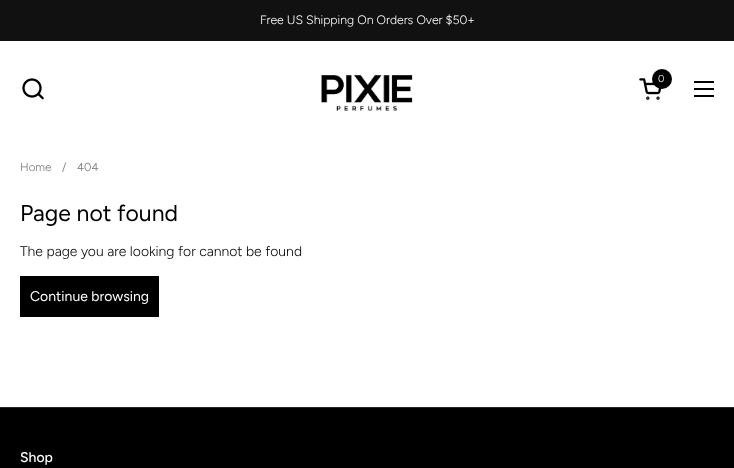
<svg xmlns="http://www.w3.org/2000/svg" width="734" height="468">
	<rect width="100%" height="100%" fill="#FFFFFF" />
	<rect x="0" y="0" width="734" height="41" fill="#111111" />
	<text x="260" y="24" font-family="Figtree" font-size="12.25" font-weight="300" fill="#FFFFFF">Free US Shipping On Orders Over $50+</text>
	<image x="22" y="78" width="22" height="22" href="assets/img1.png" />
	<image x="321" y="75" width="92" height="36" href="assets/img2.png" />
	<circle cx="662" cy="79" r="10" fill="#000000" />
	<text x="658" y="82" font-family="Figtree" font-size="10" font-weight="300" fill="#FFFFFF">0</text>
	<image x="639" y="78" width="22" height="22" href="assets/img3.png" />
	<rect x="694" y="81" width="20" height="2" fill="#000000" />
	<rect x="694" y="88" width="20" height="2" fill="#000000" />
	<rect x="694" y="95" width="20" height="2" fill="#000000" />
	<g font-family="Figtree" font-size="11.5" font-weight="300" fill="#757575">
		<text x="20" y="171">Home</text>
		<text x="62" y="171">/</text>
		<text x="77" y="171">404</text>
	</g>
	<text x="20" y="221" font-family="Figtree" font-size="23" fill="#000000">Page not found</text>
	<text x="20" y="256" font-family="Figtree" font-size="14" font-weight="300" fill="#000000">The page you are looking for cannot be found</text>
	<rect x="20" y="276" width="139" height="41" fill="#000000" />
	<text x="30" y="301" font-family="Figtree" font-size="14" fill="#FFFFFF">Continue browsing</text>
	<rect x="0" y="408" width="734" height="60" fill="#000000" />
	<rect x="0" y="407" width="734" height="1" fill="#262626" />
	<text x="20" y="462" font-family="Figtree" font-size="14" font-weight="500" fill="#FFFFFF">Shop</text>
</svg>
